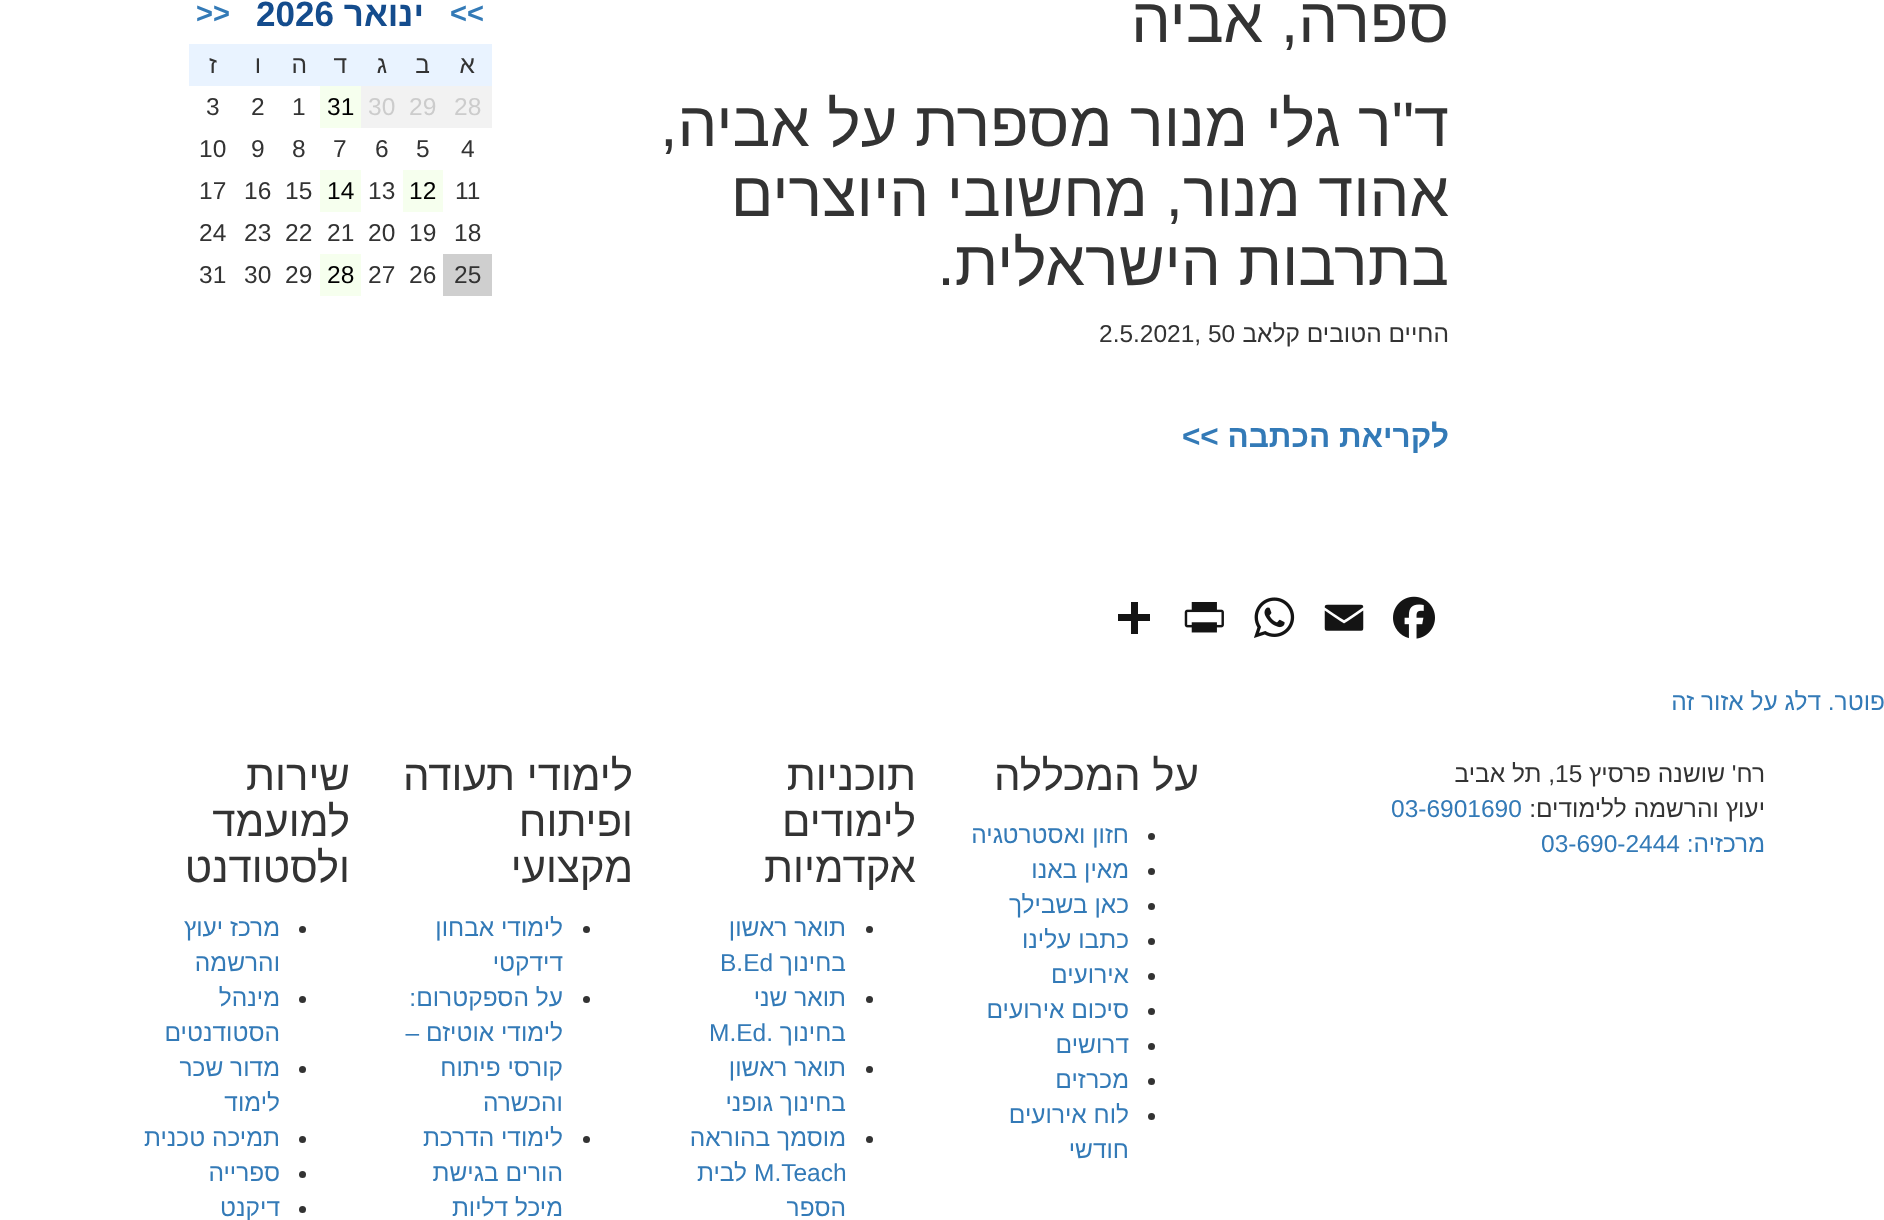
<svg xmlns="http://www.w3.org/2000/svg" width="1884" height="1220">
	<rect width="100%" height="100%" fill="#FFFFFF" />
	<g font-family="Liberation Sans" font-size="63" direction="rtl" fill="#333333">
		<text x="1449" y="42">ספרה, אביה</text>
		<text x="1449" y="146">ד"ר גלי מנור מספרת על אביה,</text>
		<text x="1449" y="216">אהוד מנור, מחשובי היוצרים</text>
		<text x="1449" y="285">בתרבות הישראלית.</text>
	</g>
	<text x="1449" y="342" font-family="Liberation Sans" font-size="24.5" direction="rtl" fill="#333333">החיים הטובים קלאב</text>
	<text x="1099" y="342" font-family="Liberation Sans" font-size="24.5" fill="#333333">2.5.2021, 50</text>
	<text x="1449" y="447" font-family="Liberation Sans" font-size="31.5" font-weight="700" direction="rtl" fill="#337AB7">לקריאת הכתבה &gt;&gt;</text>
	<image x="1393" y="596" width="42" height="43" href="assets/img1.png" />
	<image x="1324" y="604" width="40" height="27" href="assets/img2.png" />
	<image x="1254" y="597" width="41" height="41" href="assets/img3.png" />
	<image x="1184" y="602" width="40" height="31" href="assets/img4.png" />
	<rect x="1131" y="602" width="7" height="32" fill="#141414" />
	<rect x="1118" y="614" width="32" height="7" fill="#141414" />
	<text x="450" y="23" font-family="Liberation Sans" font-size="29" font-weight="700" fill="#337AB7">&lt;&lt;</text>
	<text x="424" y="26" font-family="Liberation Sans" font-size="35" font-weight="700" direction="rtl" fill="#144C8D">ינואר</text>
	<text x="256" y="26" font-family="Liberation Sans" font-size="35" font-weight="700" fill="#144C8D">2026</text>
	<text x="196" y="23" font-family="Liberation Sans" font-size="29" font-weight="700" fill="#337AB7">&gt;&gt;</text>
	<rect x="189" y="44" width="303" height="42" fill="#E9F3FF" />
	<g font-family="Liberation Sans" font-size="24.5" direction="rtl" fill="#333333">
		<text x="475" y="73">א</text>
		<text x="430" y="73">ב</text>
		<text x="387" y="73">ג</text>
		<text x="347" y="73">ד</text>
		<text x="307" y="73">ה</text>
		<text x="261" y="73">ו</text>
		<text x="217" y="73">ז</text>
	</g>
	<rect x="361" y="86" width="131" height="42" fill="#F2F2F2" />
	<g font-family="Liberation Sans" font-size="24.5" fill="#CCCCCC">
		<text x="454" y="115">28</text>
		<text x="409" y="115">29</text>
		<text x="368" y="115">30</text>
	</g>
	<rect x="320" y="86" width="41" height="42" fill="#F6FFEE" />
	<text x="327" y="115" font-family="Liberation Sans" font-size="24.5" fill="#000000">31</text>
	<g font-family="Liberation Sans" font-size="24.5" fill="#333333">
		<text x="292" y="115">1</text>
		<text x="251" y="115">2</text>
		<text x="206" y="115">3</text>
		<text x="461" y="157">4</text>
		<text x="416" y="157">5</text>
		<text x="375" y="157">6</text>
		<text x="333" y="157">7</text>
		<text x="292" y="157">8</text>
		<text x="251" y="157">9</text>
		<text x="199" y="157">10</text>
		<text x="455" y="199">11</text>
	</g>
	<rect x="403" y="170" width="40" height="42" fill="#F6FFEE" />
	<text x="409" y="199" font-family="Liberation Sans" font-size="24.5" fill="#000000">12</text>
	<text x="368" y="199" font-family="Liberation Sans" font-size="24.5" fill="#333333">13</text>
	<rect x="320" y="170" width="41" height="42" fill="#F6FFEE" />
	<text x="327" y="199" font-family="Liberation Sans" font-size="24.5" fill="#000000">14</text>
	<g font-family="Liberation Sans" font-size="24.5" fill="#333333">
		<text x="285" y="199">15</text>
		<text x="244" y="199">16</text>
		<text x="199" y="199">17</text>
		<text x="454" y="241">18</text>
		<text x="409" y="241">19</text>
		<text x="368" y="241">20</text>
		<text x="327" y="241">21</text>
		<text x="285" y="241">22</text>
		<text x="244" y="241">23</text>
		<text x="199" y="241">24</text>
	</g>
	<rect x="443" y="254" width="49" height="42" fill="#CFCFCF" />
	<g font-family="Liberation Sans" font-size="24.5" fill="#333333">
		<text x="454" y="283">25</text>
		<text x="409" y="283">26</text>
		<text x="368" y="283">27</text>
	</g>
	<rect x="320" y="254" width="41" height="42" fill="#F6FFEE" />
	<text x="327" y="283" font-family="Liberation Sans" font-size="24.5" fill="#000000">28</text>
	<g font-family="Liberation Sans" font-size="24.5" fill="#333333">
		<text x="285" y="283">29</text>
		<text x="244" y="283">30</text>
		<text x="199" y="283">31</text>
	</g>
	<text x="1885" y="710" font-family="Liberation Sans" font-size="24.5" direction="rtl" fill="#337AB7">פוטר. דלג על אזור זה</text>
	<text x="1765" y="782" font-family="Liberation Sans" font-size="24.5" direction="rtl" fill="#333333">רח' שושנה פרסיץ</text>
	<text x="1555" y="782" font-family="Liberation Sans" font-size="24.5" fill="#333333">15</text>
	<g font-family="Liberation Sans" font-size="24.5" direction="rtl" fill="#333333">
		<text x="1555" y="782">, תל אביב</text>
		<text x="1765" y="817">יעוץ והרשמה ללימודים:</text>
	</g>
	<text x="1391" y="817" font-family="Liberation Sans" font-size="24.5" fill="#337AB7">03-6901690</text>
	<text x="1765" y="852" font-family="Liberation Sans" font-size="24.5" direction="rtl" fill="#337AB7">מרכזיה:</text>
	<text x="1541" y="852" font-family="Liberation Sans" font-size="24.5" fill="#337AB7">03-690-2444</text>
	<text x="1199" y="790" font-family="Liberation Sans" font-size="42" direction="rtl" fill="#333333">על המכללה</text>
	<circle cx="1151.5" cy="836.5" r="3.5" fill="#333333" />
	<text x="1129" y="843" font-family="Liberation Sans" font-size="24.5" direction="rtl" fill="#337AB7">חזון ואסטרטגיה</text>
	<circle cx="1151.5" cy="871.5" r="3.5" fill="#333333" />
	<text x="1129" y="878" font-family="Liberation Sans" font-size="24.5" direction="rtl" fill="#337AB7">מאין באנו</text>
	<circle cx="1151.5" cy="906.5" r="3.5" fill="#333333" />
	<text x="1129" y="913" font-family="Liberation Sans" font-size="24.5" direction="rtl" fill="#337AB7">כאן בשבילך</text>
	<circle cx="1151.5" cy="941.5" r="3.5" fill="#333333" />
	<text x="1129" y="948" font-family="Liberation Sans" font-size="24.5" direction="rtl" fill="#337AB7">כתבו עלינו</text>
	<circle cx="1151.5" cy="976.5" r="3.5" fill="#333333" />
	<text x="1129" y="983" font-family="Liberation Sans" font-size="24.5" direction="rtl" fill="#337AB7">אירועים</text>
	<circle cx="1151.5" cy="1011.5" r="3.5" fill="#333333" />
	<text x="1129" y="1018" font-family="Liberation Sans" font-size="24.5" direction="rtl" fill="#337AB7">סיכום אירועים</text>
	<circle cx="1151.5" cy="1046.5" r="3.5" fill="#333333" />
	<text x="1129" y="1053" font-family="Liberation Sans" font-size="24.5" direction="rtl" fill="#337AB7">דרושים</text>
	<circle cx="1151.5" cy="1081.5" r="3.5" fill="#333333" />
	<text x="1129" y="1088" font-family="Liberation Sans" font-size="24.5" direction="rtl" fill="#337AB7">מכרזים</text>
	<circle cx="1151.5" cy="1116.5" r="3.5" fill="#333333" />
	<g font-family="Liberation Sans" font-size="24.5" direction="rtl" fill="#337AB7">
		<text x="1129" y="1123">לוח אירועים</text>
		<text x="1129" y="1158">חודשי</text>
	</g>
	<g font-family="Liberation Sans" font-size="42" direction="rtl" fill="#333333">
		<text x="916" y="790">תוכניות</text>
		<text x="916" y="836">לימודים</text>
		<text x="916" y="882">אקדמיות</text>
	</g>
	<circle cx="869.5" cy="929.5" r="3.5" fill="#333333" />
	<g font-family="Liberation Sans" font-size="24.5" direction="rtl" fill="#337AB7">
		<text x="846" y="936">תואר ראשון</text>
		<text x="846" y="971">בחינוך</text>
	</g>
	<text x="720" y="971" font-family="Liberation Sans" font-size="24.5" fill="#337AB7">B.Ed</text>
	<circle cx="869.5" cy="999.5" r="3.5" fill="#333333" />
	<g font-family="Liberation Sans" font-size="24.5" direction="rtl" fill="#337AB7">
		<text x="846" y="1006">תואר שני</text>
		<text x="846" y="1041">בחינוך .</text>
	</g>
	<text x="709" y="1041" font-family="Liberation Sans" font-size="24.5" fill="#337AB7">M.Ed</text>
	<circle cx="869.5" cy="1069.5" r="3.5" fill="#333333" />
	<g font-family="Liberation Sans" font-size="24.5" direction="rtl" fill="#337AB7">
		<text x="846" y="1076">תואר ראשון</text>
		<text x="846" y="1111">בחינוך גופני</text>
	</g>
	<circle cx="869.5" cy="1139.5" r="3.5" fill="#333333" />
	<text x="846" y="1146" font-family="Liberation Sans" font-size="24.5" direction="rtl" fill="#337AB7">מוסמך בהוראה</text>
	<text x="754" y="1181" font-family="Liberation Sans" font-size="24.5" fill="#337AB7">M.Teach</text>
	<g font-family="Liberation Sans" font-size="24.5" direction="rtl" fill="#337AB7">
		<text x="747" y="1181">לבית</text>
		<text x="846" y="1216">הספר</text>
	</g>
	<g font-family="Liberation Sans" font-size="42" direction="rtl" fill="#333333">
		<text x="633" y="790">לימודי תעודה</text>
		<text x="633" y="836">ופיתוח</text>
		<text x="633" y="882">מקצועי</text>
	</g>
	<circle cx="586.5" cy="929.5" r="3.5" fill="#333333" />
	<g font-family="Liberation Sans" font-size="24.5" direction="rtl" fill="#337AB7">
		<text x="563" y="936">לימודי אבחון</text>
		<text x="563" y="971">דידקטי</text>
	</g>
	<circle cx="586.5" cy="999.5" r="3.5" fill="#333333" />
	<g font-family="Liberation Sans" font-size="24.5" direction="rtl" fill="#337AB7">
		<text x="563" y="1006">על הספקטרום:</text>
		<text x="563" y="1041">לימודי אוטיזם –</text>
		<text x="563" y="1076">קורסי פיתוח</text>
		<text x="563" y="1111">והכשרה</text>
	</g>
	<circle cx="586.5" cy="1139.5" r="3.5" fill="#333333" />
	<g font-family="Liberation Sans" font-size="24.5" direction="rtl" fill="#337AB7">
		<text x="563" y="1146">לימודי הדרכת</text>
		<text x="563" y="1181">הורים בגישת</text>
		<text x="563" y="1216">מיכל דליות</text>
	</g>
	<g font-family="Liberation Sans" font-size="42" direction="rtl" fill="#333333">
		<text x="350" y="790">שירות</text>
		<text x="350" y="836">למועמד</text>
		<text x="350" y="882">ולסטודנט</text>
	</g>
	<circle cx="302.5" cy="929.5" r="3.5" fill="#333333" />
	<g font-family="Liberation Sans" font-size="24.5" direction="rtl" fill="#337AB7">
		<text x="280" y="936">מרכז יעוץ</text>
		<text x="280" y="971">והרשמה</text>
	</g>
	<circle cx="302.5" cy="999.5" r="3.5" fill="#333333" />
	<g font-family="Liberation Sans" font-size="24.5" direction="rtl" fill="#337AB7">
		<text x="280" y="1006">מינהל</text>
		<text x="280" y="1041">הסטודנטים</text>
	</g>
	<circle cx="302.5" cy="1069.5" r="3.5" fill="#333333" />
	<g font-family="Liberation Sans" font-size="24.5" direction="rtl" fill="#337AB7">
		<text x="280" y="1076">מדור שכר</text>
		<text x="280" y="1111">לימוד</text>
	</g>
	<circle cx="302.5" cy="1139.5" r="3.5" fill="#333333" />
	<text x="280" y="1146" font-family="Liberation Sans" font-size="24.5" direction="rtl" fill="#337AB7">תמיכה טכנית</text>
	<circle cx="302.5" cy="1174.5" r="3.5" fill="#333333" />
	<text x="280" y="1181" font-family="Liberation Sans" font-size="24.5" direction="rtl" fill="#337AB7">ספרייה</text>
	<circle cx="302.5" cy="1209.5" r="3.5" fill="#333333" />
	<text x="280" y="1216" font-family="Liberation Sans" font-size="24.5" direction="rtl" fill="#337AB7">דיקנט</text>
</svg>
